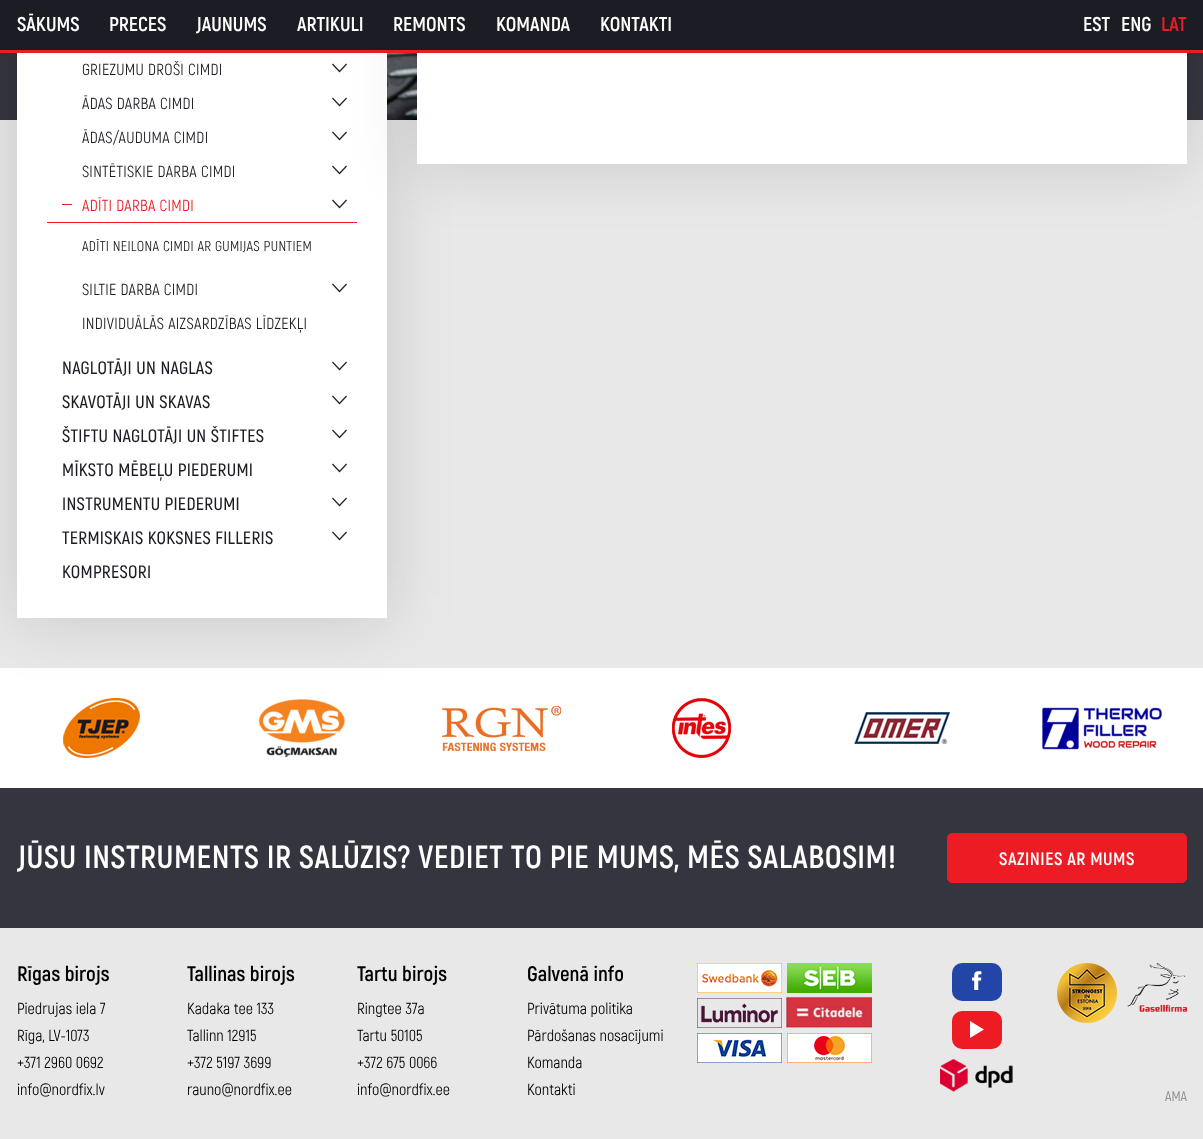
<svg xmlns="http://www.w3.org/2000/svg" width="1203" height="1139">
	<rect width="100%" height="100%" fill="#E8E8E8" />
	<rect x="0" y="53" width="1203" height="67" fill="#34353F" />
	<image x="387" y="53" width="30" height="67" href="assets/img1.png" />
	<rect x="0" y="668" width="1203" height="120" fill="#FFFFFF" />
	<image x="63" y="698" width="77" height="60" href="assets/img8.png" />
	<image x="258" y="699" width="87" height="59" href="assets/img9.png" />
	<image x="442" y="706" width="119" height="45" href="assets/img10.png" />
	<rect x="17" y="-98" width="370" height="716" fill="#000000" fill-opacity="0.14" filter="blur(32.5px)" />
	<rect x="17" y="53" width="370" height="565" fill="#FFFFFF" />
	<rect x="417" y="-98" width="770" height="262" fill="#000000" fill-opacity="0.14" filter="blur(32.5px)" />
	<rect x="0" y="0" width="1203" height="50" fill="#1C1D24" />
	<rect x="0" y="50" width="1203" height="3" fill="#ED1C24" />
	<g font-family="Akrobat" font-size="20" font-weight="700" fill="#FFFFFF">
		<text x="17" y="31">SĀKUMS</text>
		<text x="109" y="31">PRECES</text>
		<text x="196" y="31">JAUNUMS</text>
		<text x="297" y="31">ARTIKULI</text>
		<text x="393" y="31">REMONTS</text>
		<text x="496" y="31">KOMANDA</text>
		<text x="600" y="31">KONTAKTI</text>
		<text x="1083" y="31">EST</text>
		<text x="1121" y="31">ENG</text>
	</g>
	<text x="1161" y="31" font-family="Akrobat" font-size="20" font-weight="700" fill="#ED1C24">LAT</text>
	<text x="82" y="75" font-family="Akrobat" font-size="16" letter-spacing="0.3" fill="#1C1D24">GRIEZUMU DROŠI CIMDI</text>
	<image x="332" y="63" width="15" height="10" href="assets/img2.png" />
	<text x="82" y="109" font-family="Akrobat" font-size="16" letter-spacing="0.3" fill="#1C1D24">ĀDAS DARBA CIMDI</text>
	<image x="332" y="97" width="15" height="10" href="assets/img3.png" />
	<text x="82" y="143" font-family="Akrobat" font-size="16" letter-spacing="0.3" fill="#1C1D24">ĀDAS/AUDUMA CIMDI</text>
	<image x="332" y="131" width="15" height="10" href="assets/img4.png" />
	<text x="82" y="177" font-family="Akrobat" font-size="16" letter-spacing="0.3" fill="#1C1D24">SINTĒTISKIE DARBA CIMDI</text>
	<image x="332" y="165" width="15" height="10" href="assets/img5.png" />
	<rect x="62" y="204" width="10" height="1" fill="#ED1C24" />
	<text x="82" y="211" font-family="Akrobat" font-size="16" letter-spacing="0.3" fill="#ED1C24">ADĪTI DARBA CIMDI</text>
	<image x="332" y="199" width="15" height="10" href="assets/img6.png" />
	<rect x="47" y="222" width="310" height="1" fill="#ED1C24" />
	<text x="82" y="251" font-family="Akrobat" font-size="14.25" letter-spacing="0.3" fill="#1C1D24">ADĪTI NEILONA CIMDI AR GUMIJAS PUNTIEM</text>
	<text x="82" y="295" font-family="Akrobat" font-size="16" letter-spacing="0.3" fill="#1C1D24">SILTIE DARBA CIMDI</text>
	<image x="332" y="283" width="15" height="10" href="assets/img7.png" />
	<text x="82" y="329" font-family="Akrobat" font-size="16" letter-spacing="0.3" fill="#1C1D24">INDIVIDUĀLĀS AIZSARDZĪBAS LĪDZEKĻI</text>
	<text x="62" y="374" font-family="Akrobat" font-size="18" font-weight="600" letter-spacing="0.3" fill="#1C1D24">NAGLOTĀJI UN NAGLAS</text>
	<image x="332" y="361" width="15" height="10" href="assets/img7.png" />
	<text x="62" y="408" font-family="Akrobat" font-size="18" font-weight="600" letter-spacing="0.3" fill="#1C1D24">SKAVOTĀJI UN SKAVAS</text>
	<image x="332" y="395" width="15" height="10" href="assets/img7.png" />
	<text x="62" y="442" font-family="Akrobat" font-size="18" font-weight="600" letter-spacing="0.3" fill="#1C1D24">ŠTIFTU NAGLOTĀJI UN ŠTIFTES</text>
	<image x="332" y="429" width="15" height="10" href="assets/img7.png" />
	<text x="62" y="476" font-family="Akrobat" font-size="18" font-weight="600" letter-spacing="0.3" fill="#1C1D24">MĪKSTO MĒBEĻU PIEDERUMI</text>
	<image x="332" y="463" width="15" height="10" href="assets/img7.png" />
	<text x="62" y="510" font-family="Akrobat" font-size="18" font-weight="600" letter-spacing="0.3" fill="#1C1D24">INSTRUMENTU PIEDERUMI</text>
	<image x="332" y="497" width="15" height="10" href="assets/img7.png" />
	<text x="62" y="544" font-family="Akrobat" font-size="18" font-weight="600" letter-spacing="0.3" fill="#1C1D24">TERMISKAIS KOKSNES FILLERIS</text>
	<image x="332" y="531" width="15" height="10" href="assets/img7.png" />
	<text x="62" y="578" font-family="Akrobat" font-size="18" font-weight="600" letter-spacing="0.3" fill="#1C1D24">KOMPRESORI</text>
	<rect x="417" y="53" width="770" height="111" fill="#FFFFFF" />
	<image x="672" y="698" width="59" height="60" href="assets/img11.png" />
	<image x="854" y="712" width="96" height="32" href="assets/img12.png" />
	<image x="1042" y="707" width="120" height="43" href="assets/img13.png" />
	<rect x="0" y="788" width="1203" height="140" fill="#34353F" />
	<text x="17" y="868" font-family="Akrobat" font-size="32" font-weight="700" letter-spacing="0.5" fill="#FFFFFF">JŪSU INSTRUMENTS IR SALŪZIS? VEDIET TO PIE MUMS, MĒS SALABOSIM!</text>
	<rect x="947.5" y="833.5" width="239" height="49" rx="4.5" fill="#ED1C24" stroke="#ED1C24" />
	<text x="999" y="865" font-family="Akrobat" font-size="18" font-weight="700" letter-spacing="0.5" fill="#FFFFFF">SAZINIES AR MUMS</text>
	<text x="17" y="981" font-family="Akrobat" font-size="21" font-weight="700" fill="#000000">Rīgas birojs</text>
	<g font-family="Akrobat" font-size="16" fill="#000000">
		<text x="17" y="1014">Piedrujas iela 7</text>
		<text x="17" y="1041">Rīga, LV-1073</text>
		<text x="17" y="1068">+371 2960 0692</text>
		<text x="17" y="1095">info@nordfix.lv</text>
	</g>
	<text x="187" y="981" font-family="Akrobat" font-size="21" font-weight="700" fill="#000000">Tallinas birojs</text>
	<g font-family="Akrobat" font-size="16" fill="#000000">
		<text x="187" y="1014">Kadaka tee 133</text>
		<text x="187" y="1041">Tallinn 12915</text>
		<text x="187" y="1068">+372 5197 3699</text>
		<text x="187" y="1095">rauno@nordfix.ee</text>
	</g>
	<text x="357" y="981" font-family="Akrobat" font-size="21" font-weight="700" fill="#000000">Tartu birojs</text>
	<g font-family="Akrobat" font-size="16" fill="#000000">
		<text x="357" y="1014">Ringtee 37a</text>
		<text x="357" y="1041">Tartu 50105</text>
		<text x="357" y="1068">+372 675 0066</text>
		<text x="357" y="1095">info@nordfix.ee</text>
	</g>
	<text x="527" y="981" font-family="Akrobat" font-size="21" font-weight="700" fill="#000000">Galvenā info</text>
	<g font-family="Akrobat" font-size="16" fill="#000000">
		<text x="527" y="1014">Privātuma politika</text>
		<text x="527" y="1041">Pārdošanas nosacījumi</text>
		<text x="527" y="1068">Komanda</text>
		<text x="527" y="1095">Kontakti</text>
	</g>
	<image x="697" y="963" width="175" height="100" href="assets/img14.png" />
	<rect x="952" y="963" width="50" height="38" rx="10" fill="#2345A8" />
	<image x="972" y="971" width="10" height="19" href="assets/img15.png" />
	<rect x="952" y="1011" width="50" height="38" rx="10" fill="#ED1C24" />
	<path d="M970 1021L984 1029.5L970 1038Z" fill="#FFFFFF" />
	<image x="940" y="1059" width="73" height="33" href="assets/img16.png" />
	<image x="1057" y="963" width="60" height="60" href="assets/img17.png" />
	<image x="1127" y="963" width="60" height="49" href="assets/img18.png" />
	<text x="1165" y="1101" font-family="Akrobat" font-size="14" fill="#868484">AMA</text>
</svg>
